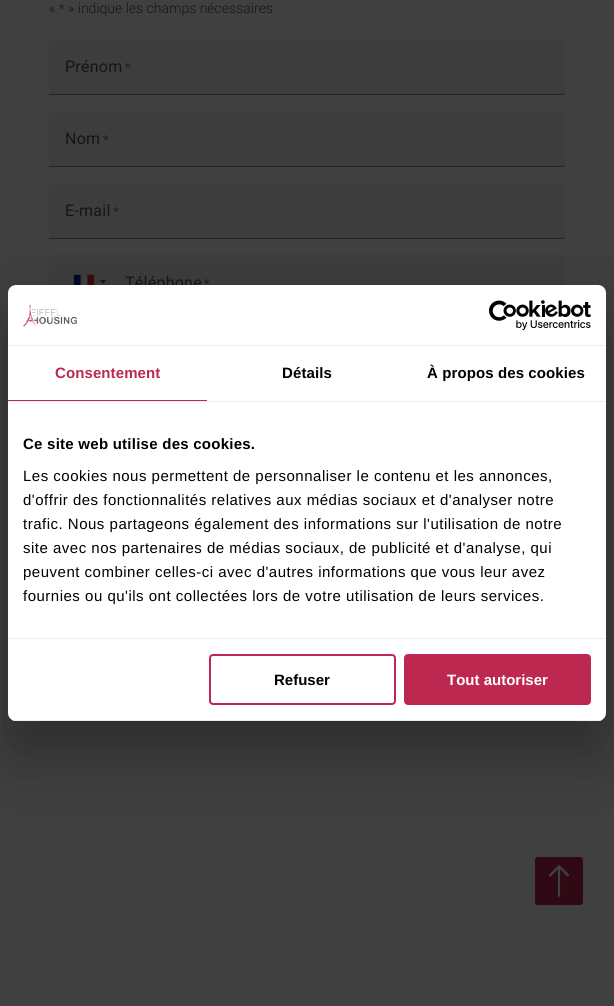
#include <cairo.h>
#include <math.h>
#include <stddef.h>

static cairo_t *c;
static void C(unsigned color){cairo_set_source_rgb(c, (color >> 16) / 255.0, (color >> 8 & 255) / 255.0, (color & 255) / 255.0);}
static void F(const char *family, double size, int italic, int bold){cairo_select_font_face(c, family, italic ? CAIRO_FONT_SLANT_ITALIC : CAIRO_FONT_SLANT_NORMAL,bold ? CAIRO_FONT_WEIGHT_BOLD : CAIRO_FONT_WEIGHT_NORMAL);cairo_set_font_size(c, size);}
static void T(double x, double y, const char *s){cairo_move_to(c, x, y);cairo_show_text(c, s);}
static void L(double x, double y, const char *s, double letter, double word){cairo_move_to(c, x, y);while (*s) {char ch[5] = {0};int n = 0;do ch[n++] = *s++; while ((*s & 0xC0) == 0x80);cairo_show_text(c, ch);cairo_rel_move_to(c, letter + word * (*ch == ' '), 0);}}
static void R(double x, double y, double w, double h){cairo_rectangle(c, x, y, w, h);cairo_fill(c);}
static void Q(double x, double y, double w, double h, double r){cairo_new_sub_path(c);cairo_arc(c, x + w - r, y + h - r, r, 0, M_PI / 2);cairo_arc(c, x + r, y + h - r, r, M_PI / 2, M_PI);cairo_arc(c, x + r, y + r, r, M_PI, 1.5 * M_PI);cairo_arc(c, x + w - r, y + r, r, 1.5 * M_PI, 2 * M_PI);cairo_close_path(c);}
static void S(double x, double y, double w, double h, double r, double blur, double alpha){cairo_push_group_with_content(c, CAIRO_CONTENT_ALPHA);cairo_set_operator(c, CAIRO_OPERATOR_SOURCE);for (int i = 15; i >= -15 && fmin(w, h) + blur * i / 3 > 0; i -= 2) {double e = blur * i / 6;cairo_set_source_rgba(c, 0, 0, 0, alpha * erfc((i - 1) / 8.5) / 2);Q(x - e, y - e, w + 2 * e, h + 2 * e, fmax(0, fmin(r + e + blur * .6, fmin(w, h) / 2 + e)));cairo_fill(c);}cairo_pattern_t *soft = cairo_pop_group(c);cairo_mask(c, soft);cairo_pattern_destroy(soft);}
static void I(const char *path, double x, double y, double w, double h){cairo_surface_t *image = cairo_image_surface_create_from_png(path);cairo_save(c);cairo_set_source_surface(c, image, x, y);cairo_rectangle(c, x, y, w, h);cairo_fill(c);cairo_restore(c);cairo_surface_destroy(image);}
int main(void) {
cairo_surface_t *surface = cairo_image_surface_create(CAIRO_FORMAT_RGB24, 614, 1006);
c = cairo_create(surface);
cairo_font_options_t *options = cairo_font_options_create();
cairo_font_options_set_hint_metrics(options, CAIRO_HINT_METRICS_OFF);
cairo_font_options_set_hint_style(options, CAIRO_HINT_STYLE_NONE);
cairo_set_font_options(c, options);
cairo_set_miter_limit(c, 4);
C(0x404040);
cairo_paint(c);
F("Roboto Light",14,0,0);
C(0x151418);
T(49,13,"«");
F("Roboto Light",13,0,0);
C(0x300b03);
T(59,13,"*");
F("Roboto Light",14,0,0);
C(0x151418);
T(68,13,"» indique les champs nécessaires");
C(0x3d3d3d);
cairo_new_path(c);
cairo_move_to(c,53,39);
cairo_line_to(c,561,39);
cairo_curve_to(c,563,39,565,41,565,43);
cairo_line_to(c,565,95);
cairo_line_to(c,49,95);
cairo_line_to(c,49,43);
cairo_curve_to(c,49,41,51,39,53,39);
cairo_close_path(c);
cairo_fill(c);
F("Roboto",16,0,0);
C(0x151418);
L(65,72,"Prénom",.25,0);
F("Roboto Light",13,0,0);
C(0x300b03);
L(125,72,"*",.25,0);
C(0x242424);
R(49,94,516,1);
C(0x3d3d3d);
cairo_new_path(c);
cairo_move_to(c,53,111);
cairo_line_to(c,561,111);
cairo_curve_to(c,563,111,565,113,565,115);
cairo_line_to(c,565,167);
cairo_line_to(c,49,167);
cairo_line_to(c,49,115);
cairo_curve_to(c,49,113,51,111,53,111);
cairo_close_path(c);
cairo_fill(c);
F("Roboto",16,0,0);
C(0x151418);
L(65,144,"Nom",.25,0);
F("Roboto Light",13,0,0);
C(0x300b03);
L(103,144,"*",.25,0);
C(0x242424);
R(49,166,516,1);
C(0x3d3d3d);
cairo_new_path(c);
cairo_move_to(c,53,183);
cairo_line_to(c,561,183);
cairo_curve_to(c,563,183,565,185,565,187);
cairo_line_to(c,565,239);
cairo_line_to(c,49,239);
cairo_line_to(c,49,187);
cairo_curve_to(c,49,185,51,183,53,183);
cairo_close_path(c);
cairo_fill(c);
F("Roboto",16,0,0);
C(0x151418);
L(65,216,"E-mail",.25,0);
F("Roboto Light",13,0,0);
C(0x300b03);
L(113,216,"*",.25,0);
C(0x242424);
R(49,238,516,1);
C(0x3d3d3d);
cairo_new_path(c);
cairo_move_to(c,53,255);
cairo_line_to(c,561,255);
cairo_curve_to(c,563,255,565,257,565,259);
cairo_line_to(c,565,311);
cairo_line_to(c,49,311);
cairo_line_to(c,49,259);
cairo_curve_to(c,49,257,51,255,53,255);
cairo_close_path(c);
cairo_fill(c);
C(0x222222);
S(74,275,20,14,0,.5,1);
I("1.png",74,275,20,10);
C(0x151515);
cairo_new_path(c);
cairo_move_to(c,100,280);
cairo_line_to(c,106,280);
cairo_line_to(c,103,284);
cairo_close_path(c);
cairo_fill(c);
F("Roboto",16,0,0);
C(0x151418);
L(125,288,"Téléphone",.25,0);
F("Roboto Light",13,0,0);
C(0x300b03);
L(204,288,"*",.25,0);
C(0x2f0a14);
Q(534.5,856.5,49,49,3.5);
cairo_fill_preserve(c);
C(0x404040);
cairo_set_line_width(c,1);
cairo_stroke(c);
I("2.png",548,865,22,32);
C(0x000000);
S(8,317,598,436,8,34,.3);
C(0xffffff);
Q(8,285,598,436,8);
cairo_fill(c);
C(0xeeeeee);
R(8,345,598,1);
I("3.png",23,304,54,23);
I("4.png",489,300,102,30);
R(8,401,598,1);
C(0xbd2850);
R(8,400,199,1);
F("Liberation Sans",15,0,1);
L(55,378,"Consentement",.1,0);
C(0x000000);
L(282,378,"Détails",.1,0);
L(427,378,"À propos des cookies",.1,0);
C(0xeeeeee);
R(8,638,598,1);
C(0x000000);
L(23,449,"Ce site web utilise des cookies.",.25,0);
F("Liberation Sans",15,0,0);
L(23,481,"Les cookies nous permettent de personnaliser le contenu et les annonces,",.5,0);
L(23,505,"d'offrir des fonctionnalités relatives aux médias sociaux et d'analyser notre",.5,0);
L(23,529,"trafic. Nous partageons également des informations sur l'utilisation de notre",.5,0);
L(23,553,"site avec nos partenaires de médias sociaux, de publicité et d'analyse, qui",.5,0);
L(23,577,"peuvent combiner celles-ci avec d'autres informations que vous leur avez",.5,0);
L(23,601,"fournies ou qu'ils ont collectées lors de votre utilisation de leurs services.",.5,0);
cairo_save(c);
Q(8,285,598,436,8);
cairo_clip(c);
C(0xeeeeee);
R(8,720,598,1);
cairo_restore(c);
Q(210,655,185,49,3);
C(0xbd2850);
cairo_set_line_width(c,2);
cairo_stroke(c);
F("Liberation Sans",15,0,1);
C(0x000000);
T(274,685,"Refuser");
C(0xbd2850);
Q(405,655,185,49,3);
cairo_fill_preserve(c);
cairo_stroke(c);
C(0xffffff);
T(447,685,"Tout autoriser");
cairo_surface_write_to_png(surface, "o.png");
cairo_font_options_destroy(options);
cairo_destroy(c);
cairo_surface_destroy(surface);
return 0;
}
